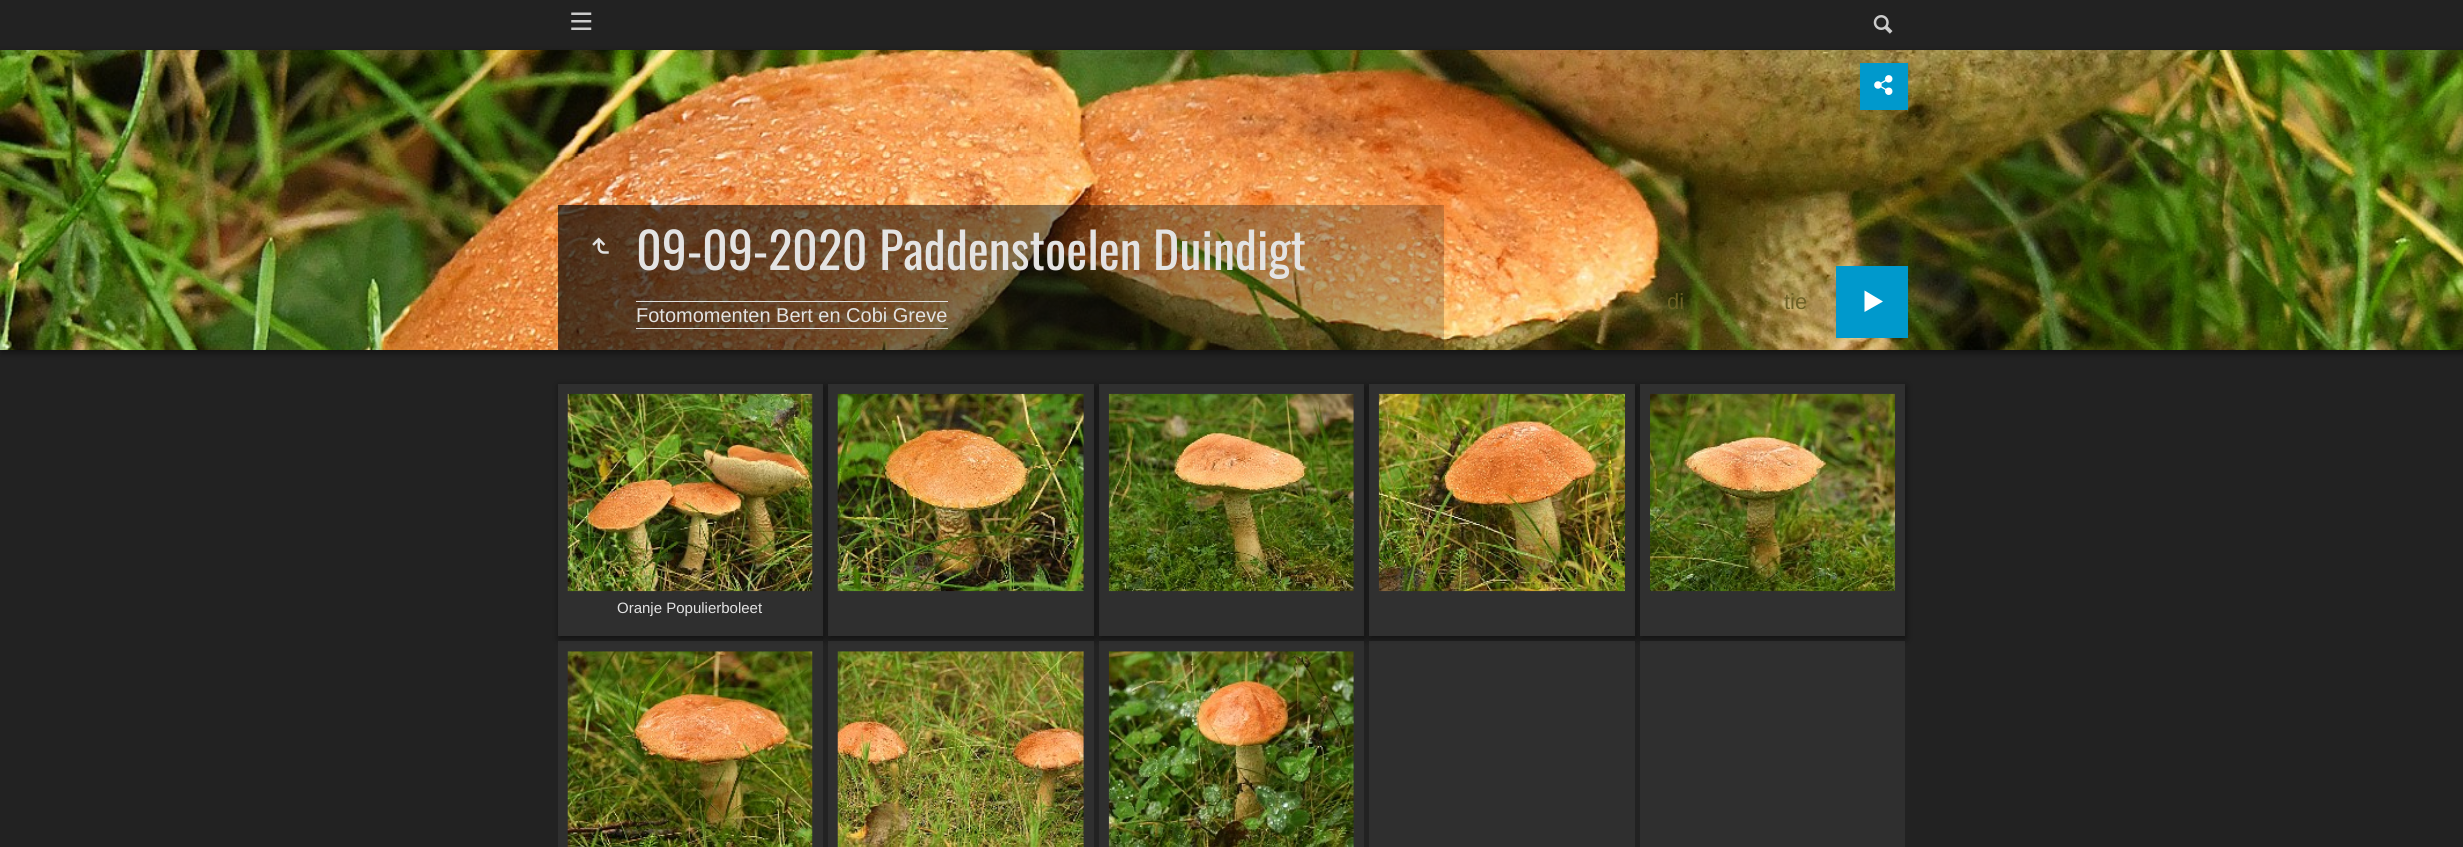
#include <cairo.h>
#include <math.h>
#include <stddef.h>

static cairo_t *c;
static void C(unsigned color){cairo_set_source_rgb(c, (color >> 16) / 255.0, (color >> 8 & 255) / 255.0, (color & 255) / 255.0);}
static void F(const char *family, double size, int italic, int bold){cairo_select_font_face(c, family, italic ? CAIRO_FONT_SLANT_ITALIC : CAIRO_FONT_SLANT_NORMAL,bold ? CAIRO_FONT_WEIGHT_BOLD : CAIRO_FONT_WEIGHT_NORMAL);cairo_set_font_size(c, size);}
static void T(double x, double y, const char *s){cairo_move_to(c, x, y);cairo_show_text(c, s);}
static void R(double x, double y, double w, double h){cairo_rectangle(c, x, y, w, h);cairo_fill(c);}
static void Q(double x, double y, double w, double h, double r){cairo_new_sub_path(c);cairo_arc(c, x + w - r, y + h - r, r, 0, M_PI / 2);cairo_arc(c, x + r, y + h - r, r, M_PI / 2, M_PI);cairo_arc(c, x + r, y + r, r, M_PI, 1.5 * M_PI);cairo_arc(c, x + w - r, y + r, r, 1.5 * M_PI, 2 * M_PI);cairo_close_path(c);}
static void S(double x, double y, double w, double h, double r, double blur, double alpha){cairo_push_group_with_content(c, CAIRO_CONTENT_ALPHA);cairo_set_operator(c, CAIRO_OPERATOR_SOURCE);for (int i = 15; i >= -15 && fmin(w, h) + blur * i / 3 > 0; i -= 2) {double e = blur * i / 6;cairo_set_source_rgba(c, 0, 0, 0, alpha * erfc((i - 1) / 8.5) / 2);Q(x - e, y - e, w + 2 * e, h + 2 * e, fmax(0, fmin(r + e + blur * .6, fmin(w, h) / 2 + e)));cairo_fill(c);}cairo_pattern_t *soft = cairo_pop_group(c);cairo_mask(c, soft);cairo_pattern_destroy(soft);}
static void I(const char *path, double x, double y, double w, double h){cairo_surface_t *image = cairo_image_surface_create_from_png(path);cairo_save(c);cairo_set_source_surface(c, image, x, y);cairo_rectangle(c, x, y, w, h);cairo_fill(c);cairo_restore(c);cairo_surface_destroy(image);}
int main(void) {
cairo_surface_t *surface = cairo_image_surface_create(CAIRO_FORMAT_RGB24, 2463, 847);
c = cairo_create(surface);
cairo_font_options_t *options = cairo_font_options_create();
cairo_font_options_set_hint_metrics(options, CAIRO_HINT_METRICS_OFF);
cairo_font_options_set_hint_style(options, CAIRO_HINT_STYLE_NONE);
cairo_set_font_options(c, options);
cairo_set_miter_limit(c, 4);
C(0x222222);
cairo_paint(c);
I("1.png",571,12,21,18);
I("2.png",1873,15,20,19);
C(0x000000);
S(1,53,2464,300,0,4,.5);
I("3.png",0,50,2463,300);
I("4.png",592,237,17,17);
F("Oswald",50,0,0);
C(0xe3e3e3);
T(636,270,"09-09-2020 Paddenstoelen Duindigt");
C(0xe1e1e1);
R(636,301,312,1);
R(636,328,312,1);
F("Liberation Sans",20,0,0);
C(0xe3e3e3);
T(636,322,"Fotomomenten Bert en Cobi Greve");
C(0x0099cc);
R(1860,63,48,47);
I("5.png",1874,75,19,20);
F("Liberation Sans",22,0,0);
C(0x6c6125);
T(1667,309,"di");
T(1784,309,"tie");
C(0x0099cc);
R(1836,266,72,72);
C(0xffffff);
cairo_new_path(c);
cairo_move_to(c,1864.5,290.5);
cairo_line_to(c,1883,301.5);
cairo_line_to(c,1864.5,312);
cairo_close_path(c);
cairo_fill(c);
cairo_save(c);
cairo_set_fill_rule(c,CAIRO_FILL_RULE_EVEN_ODD);
cairo_new_path(c);
cairo_move_to(c,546,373);
cairo_line_to(c,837,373);
cairo_line_to(c,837,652);
cairo_line_to(c,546,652);
cairo_close_path(c);
cairo_move_to(c,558,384);
cairo_line_to(c,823,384);
cairo_line_to(c,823,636);
cairo_line_to(c,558,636);
cairo_close_path(c);
cairo_clip(c);
C(0x000000);
S(559,386,265,253,0,4,.5);
cairo_restore(c);
cairo_set_source_rgba(c,0.267,0.267,0.267,0.4);
R(558,384,265,252);
I("6.png",567,393,246,199);
F("Liberation Sans",15,0,0);
C(0xe3e3e3);
T(617,613,"Oranje Populierboleet");
cairo_save(c);
cairo_set_fill_rule(c,CAIRO_FILL_RULE_EVEN_ODD);
cairo_new_path(c);
cairo_move_to(c,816,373);
cairo_line_to(c,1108,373);
cairo_line_to(c,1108,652);
cairo_line_to(c,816,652);
cairo_close_path(c);
cairo_move_to(c,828,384);
cairo_line_to(c,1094,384);
cairo_line_to(c,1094,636);
cairo_line_to(c,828,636);
cairo_close_path(c);
cairo_clip(c);
C(0x000000);
S(829,386,266,253,0,4,.5);
cairo_restore(c);
cairo_set_source_rgba(c,0.267,0.267,0.267,0.4);
R(828,384,266,252);
I("7.png",837,393,247,199);
cairo_save(c);
cairo_set_fill_rule(c,CAIRO_FILL_RULE_EVEN_ODD);
cairo_new_path(c);
cairo_move_to(c,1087,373);
cairo_line_to(c,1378,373);
cairo_line_to(c,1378,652);
cairo_line_to(c,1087,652);
cairo_close_path(c);
cairo_move_to(c,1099,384);
cairo_line_to(c,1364,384);
cairo_line_to(c,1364,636);
cairo_line_to(c,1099,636);
cairo_close_path(c);
cairo_clip(c);
C(0x000000);
S(1100,386,265,253,0,4,.5);
cairo_restore(c);
R(1099,384,265,252);
I("8.png",1108,393,246,199);
C(0x000000);
S(1370,386,266,253,0,4,.5);
C(0x303030);
R(1369,384,266,252);
I("9.png",1378,393,247,199);
C(0x000000);
S(1641,386,265,253,0,4,.5);
C(0x303030);
R(1640,384,265,252);
I("10.png",1650,393,245,199);
cairo_set_source_rgba(c,0.267,0.267,0.267,0.4);
R(558,641,265,206);
I("11.png",567,651,246,196);
R(828,641,266,206);
I("12.png",837,651,247,196);
R(1099,641,265,206);
I("13.png",1108,651,246,196);
R(1369,641,266,206);
R(1640,641,265,206);
cairo_surface_write_to_png(surface, "o.png");
cairo_font_options_destroy(options);
cairo_destroy(c);
cairo_surface_destroy(surface);
return 0;
}
